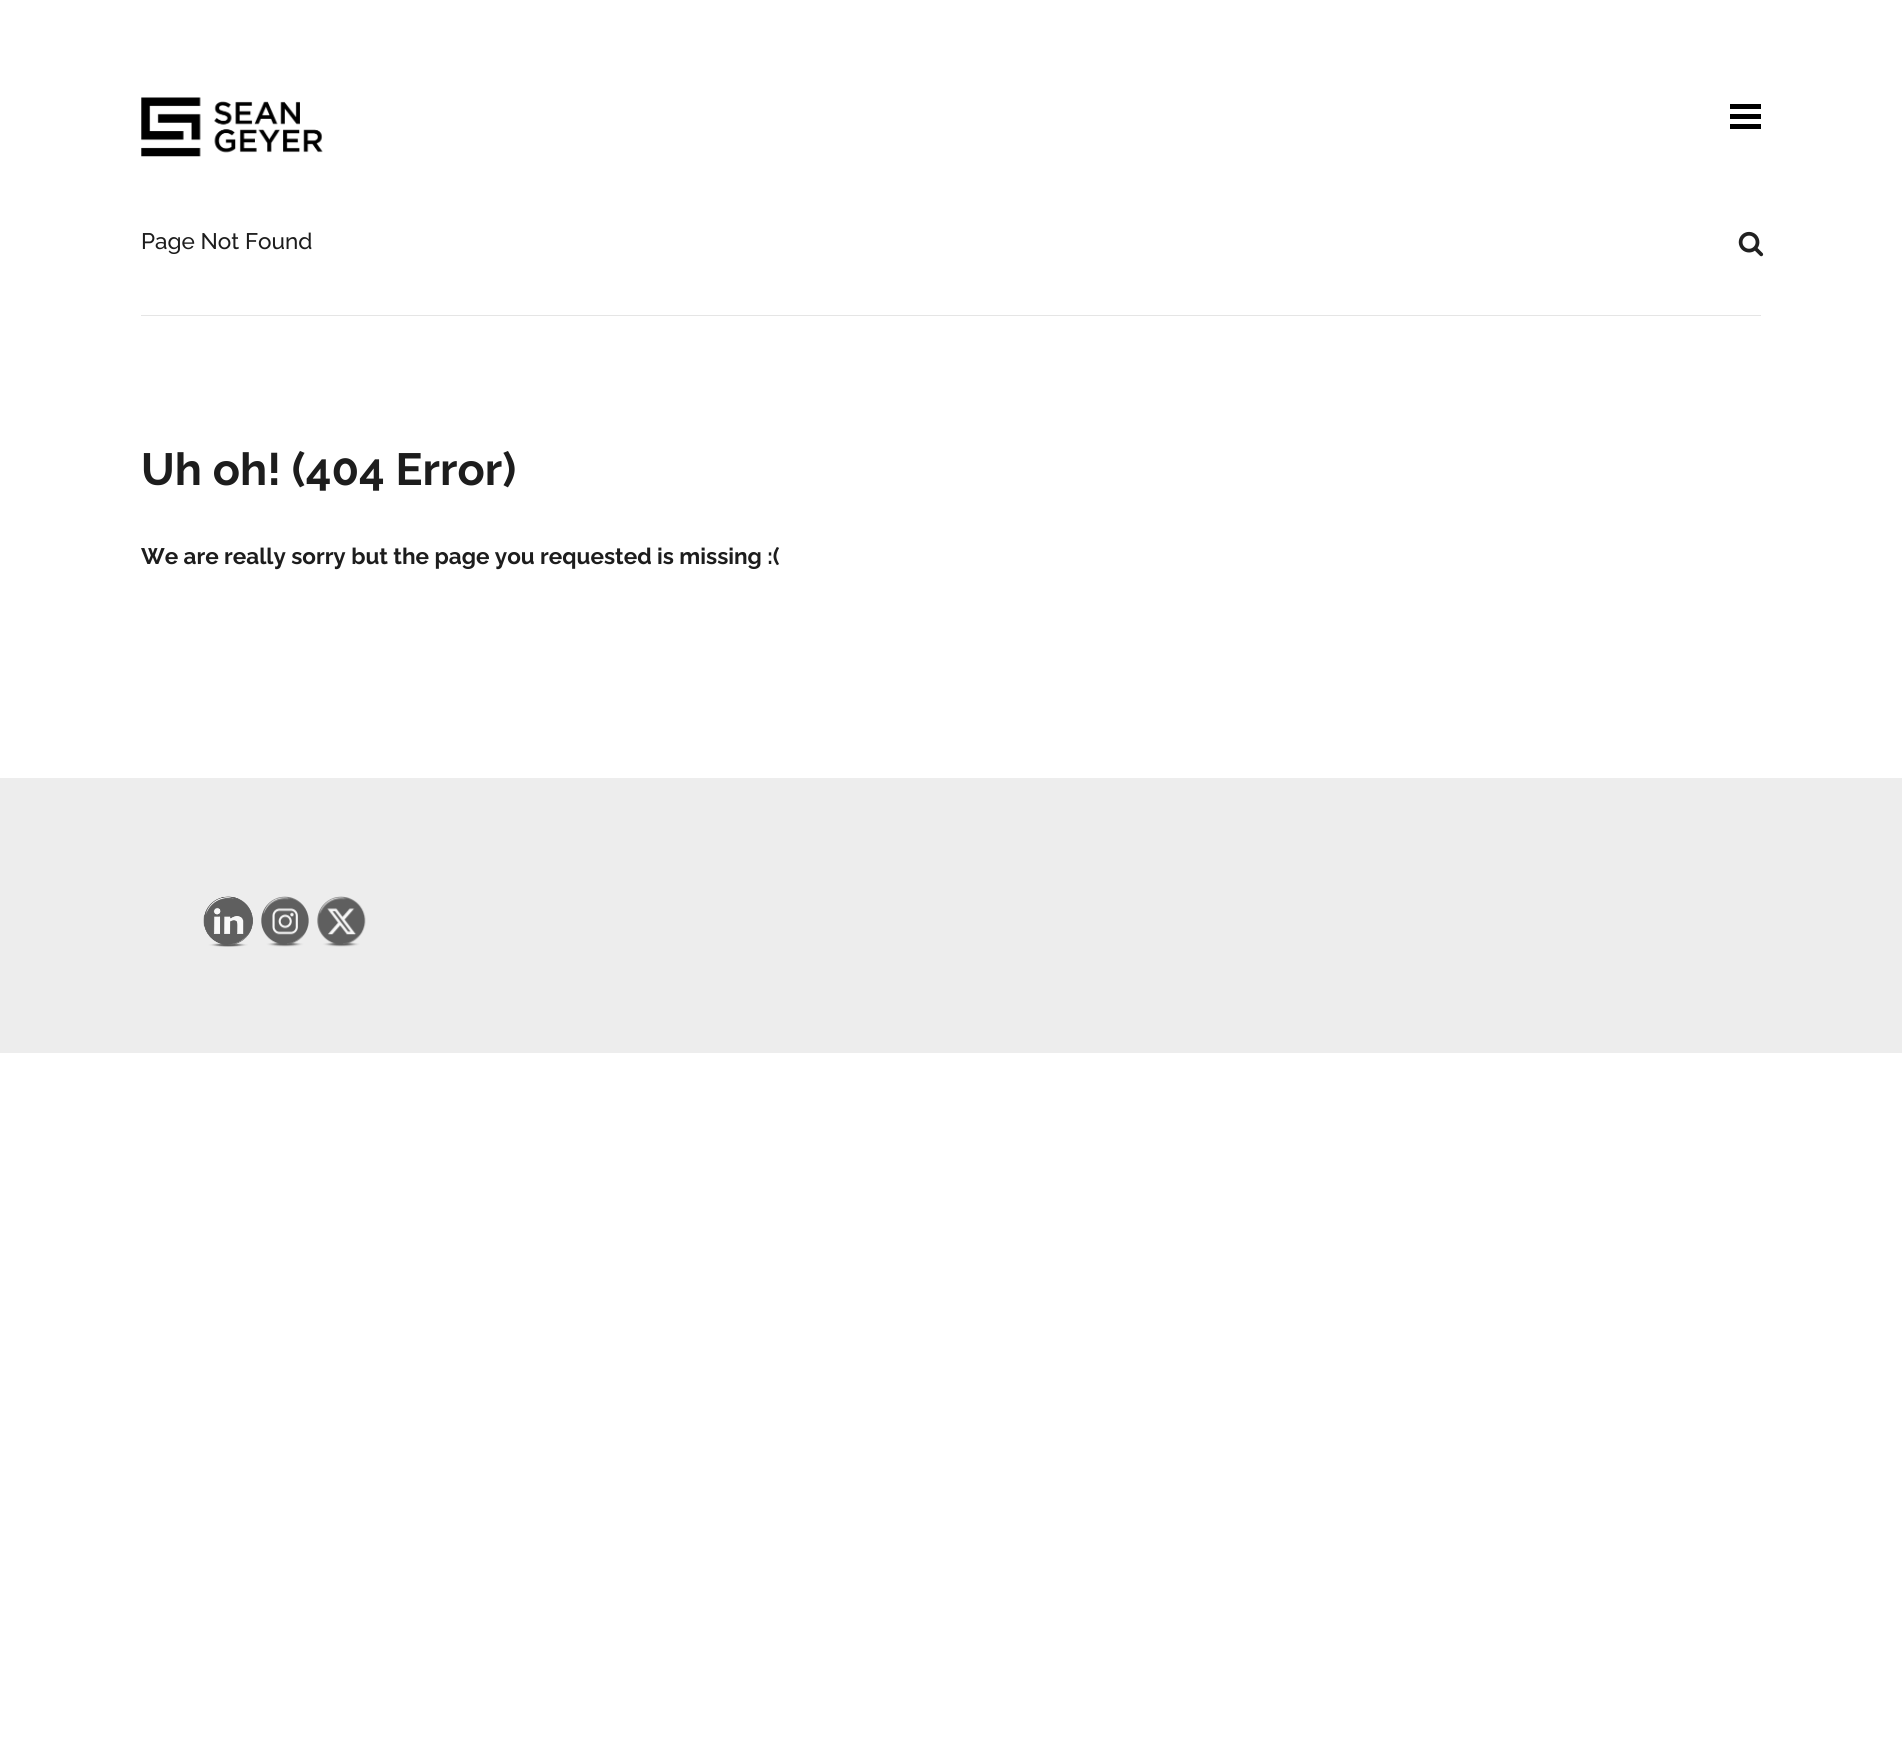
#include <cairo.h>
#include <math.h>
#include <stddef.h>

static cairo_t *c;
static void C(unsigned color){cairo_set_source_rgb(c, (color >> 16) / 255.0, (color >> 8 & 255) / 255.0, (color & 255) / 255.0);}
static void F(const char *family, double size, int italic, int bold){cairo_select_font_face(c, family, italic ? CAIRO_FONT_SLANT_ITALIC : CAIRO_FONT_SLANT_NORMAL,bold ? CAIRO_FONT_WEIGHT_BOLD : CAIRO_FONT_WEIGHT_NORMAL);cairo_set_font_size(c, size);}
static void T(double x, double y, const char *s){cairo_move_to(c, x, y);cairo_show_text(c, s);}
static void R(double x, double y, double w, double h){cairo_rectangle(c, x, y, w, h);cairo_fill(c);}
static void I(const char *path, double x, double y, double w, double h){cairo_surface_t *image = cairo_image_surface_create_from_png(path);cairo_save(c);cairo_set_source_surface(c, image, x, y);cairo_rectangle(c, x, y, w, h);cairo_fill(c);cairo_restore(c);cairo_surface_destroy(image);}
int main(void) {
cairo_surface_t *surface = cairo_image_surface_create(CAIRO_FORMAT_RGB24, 1902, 1753);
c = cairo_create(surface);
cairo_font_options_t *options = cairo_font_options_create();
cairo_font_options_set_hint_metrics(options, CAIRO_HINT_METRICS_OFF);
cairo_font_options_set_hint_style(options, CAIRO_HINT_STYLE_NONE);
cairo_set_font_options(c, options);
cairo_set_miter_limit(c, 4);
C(0xffffff);
cairo_paint(c);
I("1.png",141,97,182,60);
C(0x000000);
R(1730,104,31,5);
R(1730,114,31,5);
R(1730,124,31,5);
C(0xe5e5e5);
R(141,315,1620,1);
F("Raleway Medium",22.5,0,0);
C(0x1d1d1d);
T(141,249,"Page Not Found");
I("2.png",1738,231,26,26);
F("Raleway",45,0,1);
T(141,485,"Uh oh! (404 Error)");
F("Raleway",22.5,0,1);
T(141,564,"We are really sorry but the page you requested is missing :(");
C(0xededed);
R(0,778,1902,275);
I("3.png",203,896,50,51);
I("4.png",261,896,48,51);
I("5.png",317,896,49,51);
cairo_surface_write_to_png(surface, "o.png");
cairo_font_options_destroy(options);
cairo_destroy(c);
cairo_surface_destroy(surface);
return 0;
}
